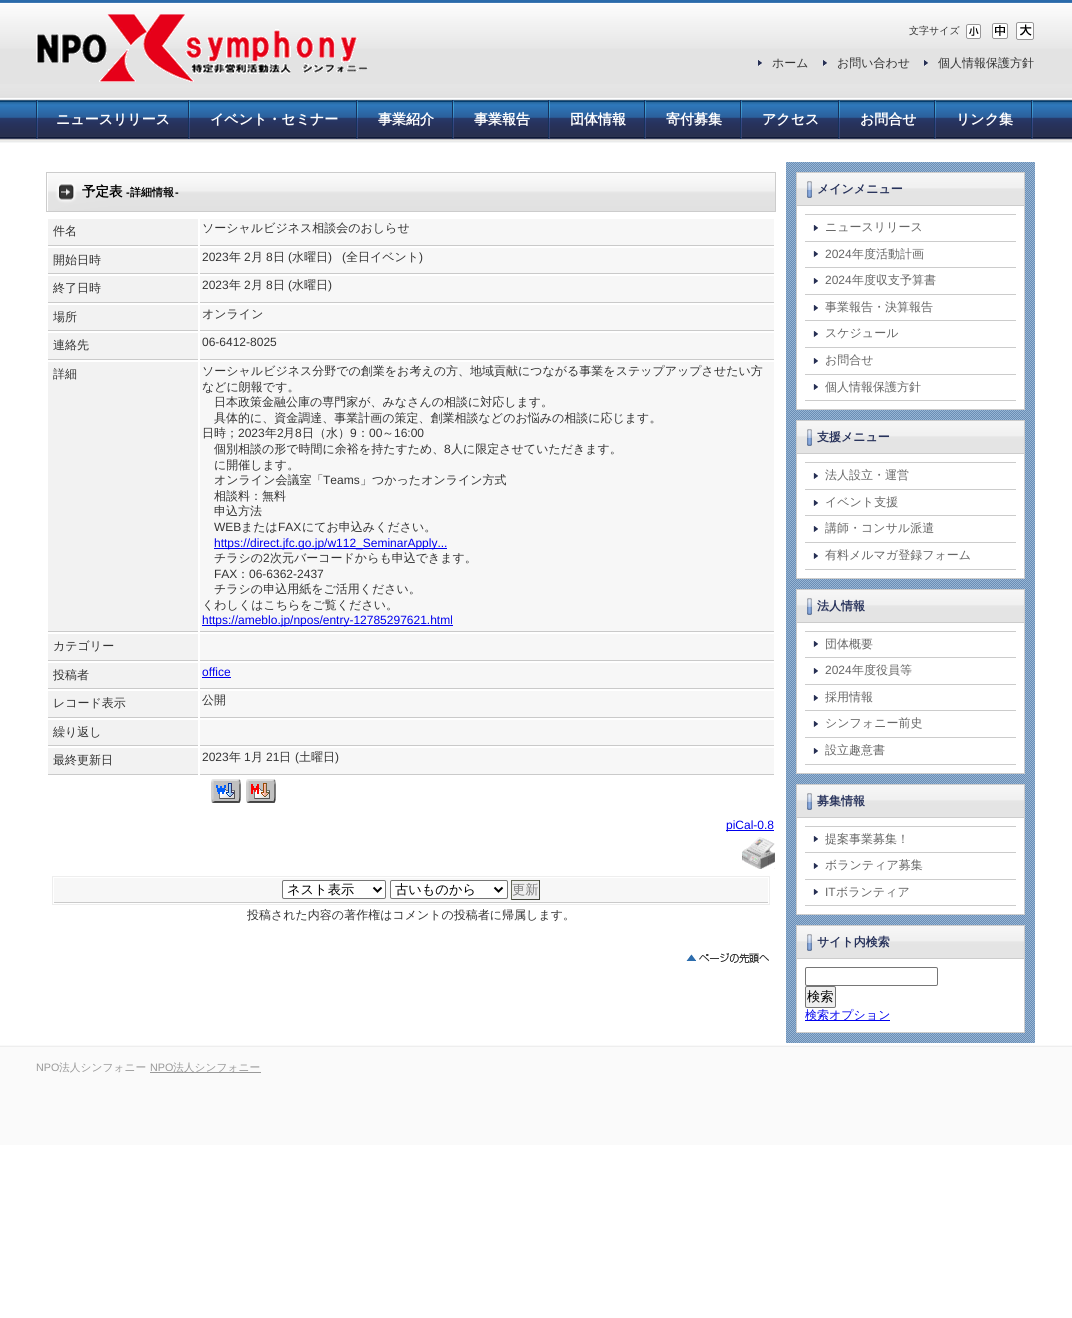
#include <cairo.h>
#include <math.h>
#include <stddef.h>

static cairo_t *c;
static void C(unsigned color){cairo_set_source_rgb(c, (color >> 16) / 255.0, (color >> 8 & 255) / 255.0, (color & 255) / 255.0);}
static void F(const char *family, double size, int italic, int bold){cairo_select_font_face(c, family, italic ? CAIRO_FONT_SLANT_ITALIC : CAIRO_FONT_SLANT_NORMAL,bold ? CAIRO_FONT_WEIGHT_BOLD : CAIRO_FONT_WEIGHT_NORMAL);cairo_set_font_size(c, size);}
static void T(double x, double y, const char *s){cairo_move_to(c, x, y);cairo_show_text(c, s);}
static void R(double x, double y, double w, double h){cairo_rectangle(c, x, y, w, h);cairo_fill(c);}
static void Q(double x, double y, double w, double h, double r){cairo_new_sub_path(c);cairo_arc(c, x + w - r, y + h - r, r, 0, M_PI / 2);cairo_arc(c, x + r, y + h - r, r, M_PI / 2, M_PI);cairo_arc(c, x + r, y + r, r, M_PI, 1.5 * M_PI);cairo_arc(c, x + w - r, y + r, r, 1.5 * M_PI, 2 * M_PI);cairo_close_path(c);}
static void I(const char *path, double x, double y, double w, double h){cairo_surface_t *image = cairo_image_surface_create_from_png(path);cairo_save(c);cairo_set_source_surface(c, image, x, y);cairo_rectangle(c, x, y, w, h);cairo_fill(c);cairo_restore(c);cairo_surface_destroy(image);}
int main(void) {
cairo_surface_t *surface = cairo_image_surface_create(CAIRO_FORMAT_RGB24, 1072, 1318);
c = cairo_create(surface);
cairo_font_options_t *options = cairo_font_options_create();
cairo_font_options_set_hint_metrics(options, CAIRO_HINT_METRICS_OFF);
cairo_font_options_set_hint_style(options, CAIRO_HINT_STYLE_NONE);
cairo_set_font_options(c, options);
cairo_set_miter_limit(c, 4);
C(0xffffff);
cairo_paint(c);
I("1.png",0,0,1072,143);
I("2.png",36,14,332,68);
F("WenQuanYi Zen Hei Medium",10,0,0);
C(0x333333);
T(909,34,"文字サイズ");
I("3.png",966,24,15,15);
I("4.png",992,23,16,16);
I("5.png",1016,22,18,18);
I("6.png",757,60,5,6);
F("WenQuanYi Zen Hei Medium",12,0,0);
T(772,67,"ホーム");
I("6.png",822,60,5,6);
T(837,67,"お問い合わせ");
I("6.png",923,60,5,6);
T(938,67,"個人情報保護方針");
I("7.png",36,100,2,39);
I("7.png",188,100,2,39);
F("WenQuanYi Zen Hei",14,0,1);
C(0xffffff);
T(56,124,"ニュースリリース");
I("7.png",356,100,2,39);
T(210,124,"イベント・セミナー");
I("7.png",452,100,2,39);
T(378,124,"事業紹介");
I("7.png",548,100,2,39);
T(474,124,"事業報告");
I("7.png",644,100,2,39);
T(570,124,"団体情報");
I("7.png",740,100,2,39);
T(666,124,"寄付募集");
I("7.png",838,100,2,39);
T(762,124,"アクセス");
I("7.png",934,100,2,39);
T(860,124,"お問合せ");
I("7.png",1031,100,2,39);
T(956,124,"リンク集");
I("8.png",48,173,727,38);
cairo_rectangle(c,46.5,172.5,729,39);
C(0xcccccc);
cairo_set_line_width(c,1);
cairo_stroke(c);
F("WenQuanYi Zen Hei",13.5,0,1);
C(0x000000);
T(82,196,"予定表");
F("Liberation Sans",11,0,1);
T(126,196,"-");
F("WenQuanYi Zen Hei",11,0,1);
T(130,196,"詳細情報");
F("Liberation Sans",11,0,1);
T(175,196,"-");
C(0xf2f2f2);
R(48,219,150,26);
C(0xcacaca);
R(48,245,150,1);
F("WenQuanYi Zen Hei Medium",12,0,0);
C(0x333333);
T(53,235,"件名");
C(0xf7f7f7);
R(200,219,574,26);
C(0xcacaca);
R(200,245,574,1);
C(0x333333);
T(202,232,"ソーシャルビジネス相談会のおしらせ");
C(0xf2f2f2);
R(48,248,150,25);
C(0xcacaca);
R(48,273,150,1);
C(0x333333);
T(53,264,"開始日時");
C(0xf7f7f7);
R(200,248,574,25);
C(0xcacaca);
R(200,273,574,1);
F("Liberation Sans",12,0,0);
C(0x333333);
T(202,261,"2023");
F("WenQuanYi Zen Hei Medium",12,0,0);
T(229,261,"年");
F("Liberation Sans",12,0,0);
T(244,261,"2");
F("WenQuanYi Zen Hei Medium",12,0,0);
T(251,261,"月");
F("Liberation Sans",12,0,0);
T(266,261,"8");
F("WenQuanYi Zen Hei Medium",12,0,0);
T(273,261,"日");
F("Liberation Sans",12,0,0);
T(288,261,"(");
F("WenQuanYi Zen Hei Medium",12,0,0);
T(292,261,"水曜日");
F("Liberation Sans",12,0,0);
T(328,261,")   (");
F("WenQuanYi Zen Hei Medium",12,0,0);
T(346,261,"全日イベント");
F("Liberation Sans",12,0,0);
T(419,261,")");
C(0xf2f2f2);
R(48,276,150,26);
C(0xcacaca);
R(48,302,150,1);
F("WenQuanYi Zen Hei Medium",12,0,0);
C(0x333333);
T(53,292,"終了日時");
C(0xf7f7f7);
R(200,276,574,26);
C(0xcacaca);
R(200,302,574,1);
F("Liberation Sans",12,0,0);
C(0x333333);
T(202,289,"2023");
F("WenQuanYi Zen Hei Medium",12,0,0);
T(229,289,"年");
F("Liberation Sans",12,0,0);
T(244,289,"2");
F("WenQuanYi Zen Hei Medium",12,0,0);
T(251,289,"月");
F("Liberation Sans",12,0,0);
T(266,289,"8");
F("WenQuanYi Zen Hei Medium",12,0,0);
T(273,289,"日");
F("Liberation Sans",12,0,0);
T(288,289,"(");
F("WenQuanYi Zen Hei Medium",12,0,0);
T(292,289,"水曜日");
F("Liberation Sans",12,0,0);
T(328,289,")");
C(0xf2f2f2);
R(48,305,150,25);
C(0xcacaca);
R(48,330,150,1);
F("WenQuanYi Zen Hei Medium",12,0,0);
C(0x333333);
T(53,321,"場所");
C(0xf7f7f7);
R(200,305,574,25);
C(0xcacaca);
R(200,330,574,1);
C(0x333333);
T(202,318,"オンライン");
C(0xf2f2f2);
R(48,333,150,26);
C(0xcacaca);
R(48,359,150,1);
C(0x333333);
T(53,349,"連絡先");
C(0xf7f7f7);
R(200,333,574,26);
C(0xcacaca);
R(200,359,574,1);
F("Liberation Sans",12,0,0);
C(0x333333);
T(202,346,"06-6412-8025");
C(0xf2f2f2);
R(48,362,150,269);
C(0xcacaca);
R(48,631,150,1);
F("WenQuanYi Zen Hei Medium",12,0,0);
C(0x333333);
T(53,378,"詳細");
C(0xf7f7f7);
R(200,362,574,269);
C(0xcacaca);
R(200,631,574,1);
C(0x333333);
T(202,375,"ソーシャルビジネス分野での創業をお考えの方、地域貢献につながる事業をステップアップさせたい方");
T(202,391,"などに朗報です。");
T(214,406,"日本政策金融公庫の専門家が、みなさんの相談に対応します。");
T(214,422,"具体的に、資金調達、事業計画の策定、創業相談などのお悩みの相談に応じます。");
T(202,437,"日時；");
F("Liberation Sans",12,0,0);
T(238,437,"2023");
F("WenQuanYi Zen Hei Medium",12,0,0);
T(265,437,"年");
F("Liberation Sans",12,0,0);
T(277,437,"2");
F("WenQuanYi Zen Hei Medium",12,0,0);
T(283,437,"月");
F("Liberation Sans",12,0,0);
T(295,437,"8");
F("WenQuanYi Zen Hei Medium",12,0,0);
T(302,437,"日（水）");
F("Liberation Sans",12,0,0);
T(350,437,"9");
F("WenQuanYi Zen Hei Medium",12,0,0);
T(357,437,"：");
F("Liberation Sans",12,0,0);
T(369,437,"00");
F("WenQuanYi Zen Hei Medium",12,0,0);
T(382,437,"～");
F("Liberation Sans",12,0,0);
T(394,437,"16:00");
F("WenQuanYi Zen Hei Medium",12,0,0);
T(214,453,"個別相談の形で時間に余裕を持たすため、");
F("Liberation Sans",12,0,0);
T(444,453,"8");
F("WenQuanYi Zen Hei Medium",12,0,0);
T(451,453,"人に限定させていただきます。");
T(214,469,"に開催します。");
T(214,484,"オンライン会議室「");
F("Liberation Sans",12,0,0);
T(323,484,"Teams");
F("WenQuanYi Zen Hei Medium",12,0,0);
T(360,484,"」つかったオンライン方式");
T(214,500,"相談料：無料");
T(214,515,"申込方法");
F("Liberation Sans",12,0,0);
T(214,531,"WEB");
F("WenQuanYi Zen Hei Medium",12,0,0);
T(241,531,"または");
F("Liberation Sans",12,0,0);
T(278,531,"FAX");
F("WenQuanYi Zen Hei Medium",12,0,0);
T(302,531,"にてお申込みください。");
C(0x0000ee);
R(214,548,233,1);
F("Liberation Sans",12,0,0);
T(214,547,"https://direct.jfc.go.jp/w112_SeminarApply...");
F("WenQuanYi Zen Hei Medium",12,0,0);
C(0x333333);
T(214,562,"チラシの");
F("Liberation Sans",12,0,0);
T(263,562,"2");
F("WenQuanYi Zen Hei Medium",12,0,0);
T(270,562,"次元バーコードからも申込できます。");
F("Liberation Sans",12,0,0);
T(214,578,"FAX");
F("WenQuanYi Zen Hei Medium",12,0,0);
T(237,578,"：");
F("Liberation Sans",12,0,0);
T(249,578,"06-6362-2437");
F("WenQuanYi Zen Hei Medium",12,0,0);
T(214,593,"チラシの申込用紙をご活用ください。");
T(202,609,"くわしくはこちらをご覧ください。");
C(0x0000ee);
R(202,625,251,1);
F("Liberation Sans",12,0,0);
T(202,624,"https://ameblo.jp/npos/entry-12785297621.html");
C(0xf2f2f2);
R(48,634,150,26);
C(0xcacaca);
R(48,660,150,1);
F("WenQuanYi Zen Hei Medium",12,0,0);
C(0x333333);
T(53,650,"カテゴリー");
C(0xf7f7f7);
R(200,634,574,26);
C(0xcacaca);
R(200,660,574,1);
C(0xf2f2f2);
R(48,663,150,25);
C(0xcacaca);
R(48,688,150,1);
C(0x333333);
T(53,679,"投稿者");
C(0xf7f7f7);
R(200,663,574,25);
C(0xcacaca);
R(200,688,574,1);
F("Liberation Sans",12,0,0);
C(0x0000ee);
T(202,676,"office");
R(202,677,29,1);
C(0xf2f2f2);
R(48,691,150,26);
C(0xcacaca);
R(48,717,150,1);
F("WenQuanYi Zen Hei Medium",12,0,0);
C(0x333333);
T(53,707,"レコード表示");
C(0xf7f7f7);
R(200,691,574,26);
C(0xcacaca);
R(200,717,574,1);
C(0x333333);
T(202,704,"公開");
C(0xf2f2f2);
R(48,720,150,25);
C(0xcacaca);
R(48,745,150,1);
C(0x333333);
T(53,736,"繰り返し");
C(0xf7f7f7);
R(200,720,574,25);
C(0xcacaca);
R(200,745,574,1);
C(0xf2f2f2);
R(48,748,150,26);
C(0xcacaca);
R(48,774,150,1);
C(0x333333);
T(53,764,"最終更新日");
C(0xf7f7f7);
R(200,748,574,26);
C(0xcacaca);
R(200,774,574,1);
F("Liberation Sans",12,0,0);
C(0x333333);
T(202,761,"2023");
F("WenQuanYi Zen Hei Medium",12,0,0);
T(229,761,"年");
F("Liberation Sans",12,0,0);
T(244,761,"1");
F("WenQuanYi Zen Hei Medium",12,0,0);
T(251,761,"月");
F("Liberation Sans",12,0,0);
T(266,761,"21");
F("WenQuanYi Zen Hei Medium",12,0,0);
T(279,761,"日");
F("Liberation Sans",12,0,0);
T(295,761,"(");
F("WenQuanYi Zen Hei Medium",12,0,0);
T(299,761,"土曜日");
F("Liberation Sans",12,0,0);
T(335,761,")");
I("9.png",211,779,30,24);
I("10.png",246,779,30,24);
C(0x0000ee);
R(726,830,48,1);
T(726,829,"piCal-0.8");
I("11.png",742,837,33,32);
cairo_rectangle(c,52.5,876.5,717,28);
C(0xeeeeee);
cairo_stroke(c);
C(0xf7f7f7);
R(54,878,714,24);
C(0xcacaca);
R(54,902,714,1);
C(0xffffff);
Q(282.5,880.5,103,18,1.5);
cairo_fill_preserve(c);
C(0x767676);
cairo_stroke(c);
cairo_new_path(c);
cairo_move_to(c,373.5,887.5);
cairo_line_to(c,377.5,891.5);
cairo_line_to(c,381.5,887.5);
C(0x000000);
cairo_set_line_width(c,2);
cairo_stroke(c);
F("WenQuanYi Zen Hei Medium",13.25,0,0);
T(287,894,"ネスト表示");
C(0xffffff);
Q(390.5,880.5,117,18,1.5);
cairo_fill_preserve(c);
C(0x767676);
cairo_set_line_width(c,1);
cairo_stroke(c);
cairo_new_path(c);
cairo_move_to(c,494.5,887.5);
cairo_line_to(c,498.5,891.5);
cairo_line_to(c,502.5,887.5);
C(0x000000);
cairo_set_line_width(c,2);
cairo_stroke(c);
T(395,894,"古いものから");
C(0xeeeeee);
R(512,881,27,18);
C(0x616655);
R(511,880,29,1);
C(0x414439);
R(539,880,1,20);
R(511,899,29,1);
C(0x616655);
R(511,880,1,20);
C(0x7f7f7f);
T(512,894,"更新");
F("WenQuanYi Zen Hei Medium",12,0,0);
C(0x333333);
T(247,919,"投稿された内容の著作権はコメントの投稿者に帰属します。");
I("12.png",686,953,83,10);
I("13.png",786,162,249,881);
I("14.png",797,173,227,32);
C(0xcccccc);
R(796,172,229,1);
R(1024,172,1,33);
R(796,172,1,33);
F("WenQuanYi Zen Hei",12,0,1);
C(0x27325b);
T(817,193,"メインメニュー");
C(0xffffff);
cairo_rectangle(c,796.5,205.5,228,204);
cairo_fill_preserve(c);
C(0xcccccc);
cairo_set_line_width(c,1);
cairo_stroke(c);
R(805,214,211,1);
I("15.png",813,225,5,6);
R(805,241,211,1);
F("WenQuanYi Zen Hei Medium",12,0,0);
C(0x666666);
T(825,231,"ニュースリリース");
I("15.png",813,251,5,6);
C(0xcccccc);
R(805,267,211,1);
F("Liberation Sans",12,0,0);
C(0x666666);
T(825,258,"2024");
F("WenQuanYi Zen Hei Medium",12,0,0);
T(852,258,"年度活動計画");
I("15.png",813,278,5,6);
C(0xcccccc);
R(805,294,211,1);
F("Liberation Sans",12,0,0);
C(0x666666);
T(825,284,"2024");
F("WenQuanYi Zen Hei Medium",12,0,0);
T(852,284,"年度収支予算書");
I("15.png",813,305,5,6);
C(0xcccccc);
R(805,320,211,1);
C(0x666666);
T(825,311,"事業報告・決算報告");
I("15.png",813,331,5,6);
C(0xcccccc);
R(805,347,211,1);
C(0x666666);
T(825,337,"スケジュール");
I("15.png",813,358,5,6);
C(0xcccccc);
R(805,374,211,1);
C(0x666666);
T(825,364,"お問合せ");
I("15.png",813,384,5,6);
C(0xcccccc);
R(805,400,211,1);
C(0x666666);
T(825,391,"個人情報保護方針");
I("14.png",797,421,227,32);
C(0xcccccc);
R(796,420,229,1);
R(1024,420,1,33);
R(796,420,1,33);
F("WenQuanYi Zen Hei",12,0,1);
C(0x27325b);
T(817,441,"支援メニュー");
C(0xffffff);
cairo_rectangle(c,796.5,453.5,228,125);
cairo_fill_preserve(c);
C(0xcccccc);
cairo_stroke(c);
R(805,462,211,1);
I("15.png",813,473,5,6);
R(805,489,211,1);
F("WenQuanYi Zen Hei Medium",12,0,0);
C(0x666666);
T(825,479,"法人設立・運営");
I("15.png",813,500,5,6);
C(0xcccccc);
R(805,515,211,1);
C(0x666666);
T(825,506,"イベント支援");
I("15.png",813,526,5,6);
C(0xcccccc);
R(805,542,211,1);
C(0x666666);
T(825,532,"講師・コンサル派遣");
I("15.png",813,553,5,6);
C(0xcccccc);
R(805,569,211,1);
C(0x666666);
T(825,559,"有料メルマガ登録フォーム");
I("14.png",797,590,227,32);
C(0xcccccc);
R(796,589,229,1);
R(1024,589,1,33);
R(796,589,1,33);
F("WenQuanYi Zen Hei",12,0,1);
C(0x27325b);
T(817,610,"法人情報");
C(0xffffff);
cairo_rectangle(c,796.5,622.5,228,151);
cairo_fill_preserve(c);
C(0xcccccc);
cairo_stroke(c);
R(805,631,211,1);
I("15.png",813,641,5,6);
R(805,657,211,1);
F("WenQuanYi Zen Hei Medium",12,0,0);
C(0x666666);
T(825,648,"団体概要");
I("15.png",813,668,5,6);
C(0xcccccc);
R(805,684,211,1);
F("Liberation Sans",12,0,0);
C(0x666666);
T(825,674,"2024");
F("WenQuanYi Zen Hei Medium",12,0,0);
T(852,674,"年度役員等");
I("15.png",813,695,5,6);
C(0xcccccc);
R(805,710,211,1);
C(0x666666);
T(825,701,"採用情報");
I("15.png",813,721,5,6);
C(0xcccccc);
R(805,737,211,1);
C(0x666666);
T(825,727,"シンフォニー前史");
I("15.png",813,748,5,6);
C(0xcccccc);
R(805,764,211,1);
C(0x666666);
T(825,754,"設立趣意書");
I("14.png",797,785,227,32);
C(0xcccccc);
R(796,784,229,1);
R(1024,784,1,33);
R(796,784,1,33);
F("WenQuanYi Zen Hei",12,0,1);
C(0x27325b);
T(817,805,"募集情報");
C(0xffffff);
cairo_rectangle(c,796.5,817.5,228,97);
cairo_fill_preserve(c);
C(0xcccccc);
cairo_stroke(c);
R(805,826,211,1);
I("15.png",813,836,5,6);
R(805,852,211,1);
F("WenQuanYi Zen Hei Medium",12,0,0);
C(0x666666);
T(825,843,"提案事業募集！");
I("15.png",813,863,5,6);
C(0xcccccc);
R(805,879,211,1);
C(0x666666);
T(825,869,"ボランティア募集");
I("15.png",813,889,5,6);
C(0xcccccc);
R(805,905,211,1);
F("Liberation Sans",12,0,0);
C(0x666666);
T(825,896,"IT");
F("WenQuanYi Zen Hei Medium",12,0,0);
T(836,896,"ボランティア");
I("14.png",797,926,227,32);
C(0xcccccc);
R(796,925,229,1);
R(1024,925,1,33);
R(796,925,1,33);
F("WenQuanYi Zen Hei",12,0,1);
C(0x27325b);
T(817,946,"サイト内検索");
C(0xffffff);
cairo_rectangle(c,796.5,958.5,228,74);
cairo_fill_preserve(c);
C(0xcccccc);
cairo_stroke(c);
Q(805.5,967.5,132,18,1.5);
C(0x767676);
cairo_stroke(c);
C(0xefefef);
Q(805.5,986.5,30,21,1.5);
cairo_fill_preserve(c);
C(0x767676);
cairo_stroke(c);
F("WenQuanYi Zen Hei Medium",13.25,0,0);
C(0x000000);
T(807,1001,"検索");
C(0x0000ee);
R(805,1020,85,1);
F("WenQuanYi Zen Hei Medium",12,0,0);
T(805,1019,"検索オプション");
C(0xfafafa);
R(0,1047,1072,98);
I("16.png",0,1043,1072,4);
F("Liberation Sans",10.75,0,0);
C(0x999999);
T(36,1071,"NPO");
F("WenQuanYi Zen Hei Medium",10.75,0,0);
T(59,1071,"法人シンフォニー");
F("Liberation Sans",10.75,0,0);
T(150,1071,"NPO");
R(150,1072,111,1);
F("WenQuanYi Zen Hei Medium",10.75,0,0);
T(173,1071,"法人シンフォニー");
cairo_surface_write_to_png(surface, "o.png");
cairo_font_options_destroy(options);
cairo_destroy(c);
cairo_surface_destroy(surface);
return 0;
}
